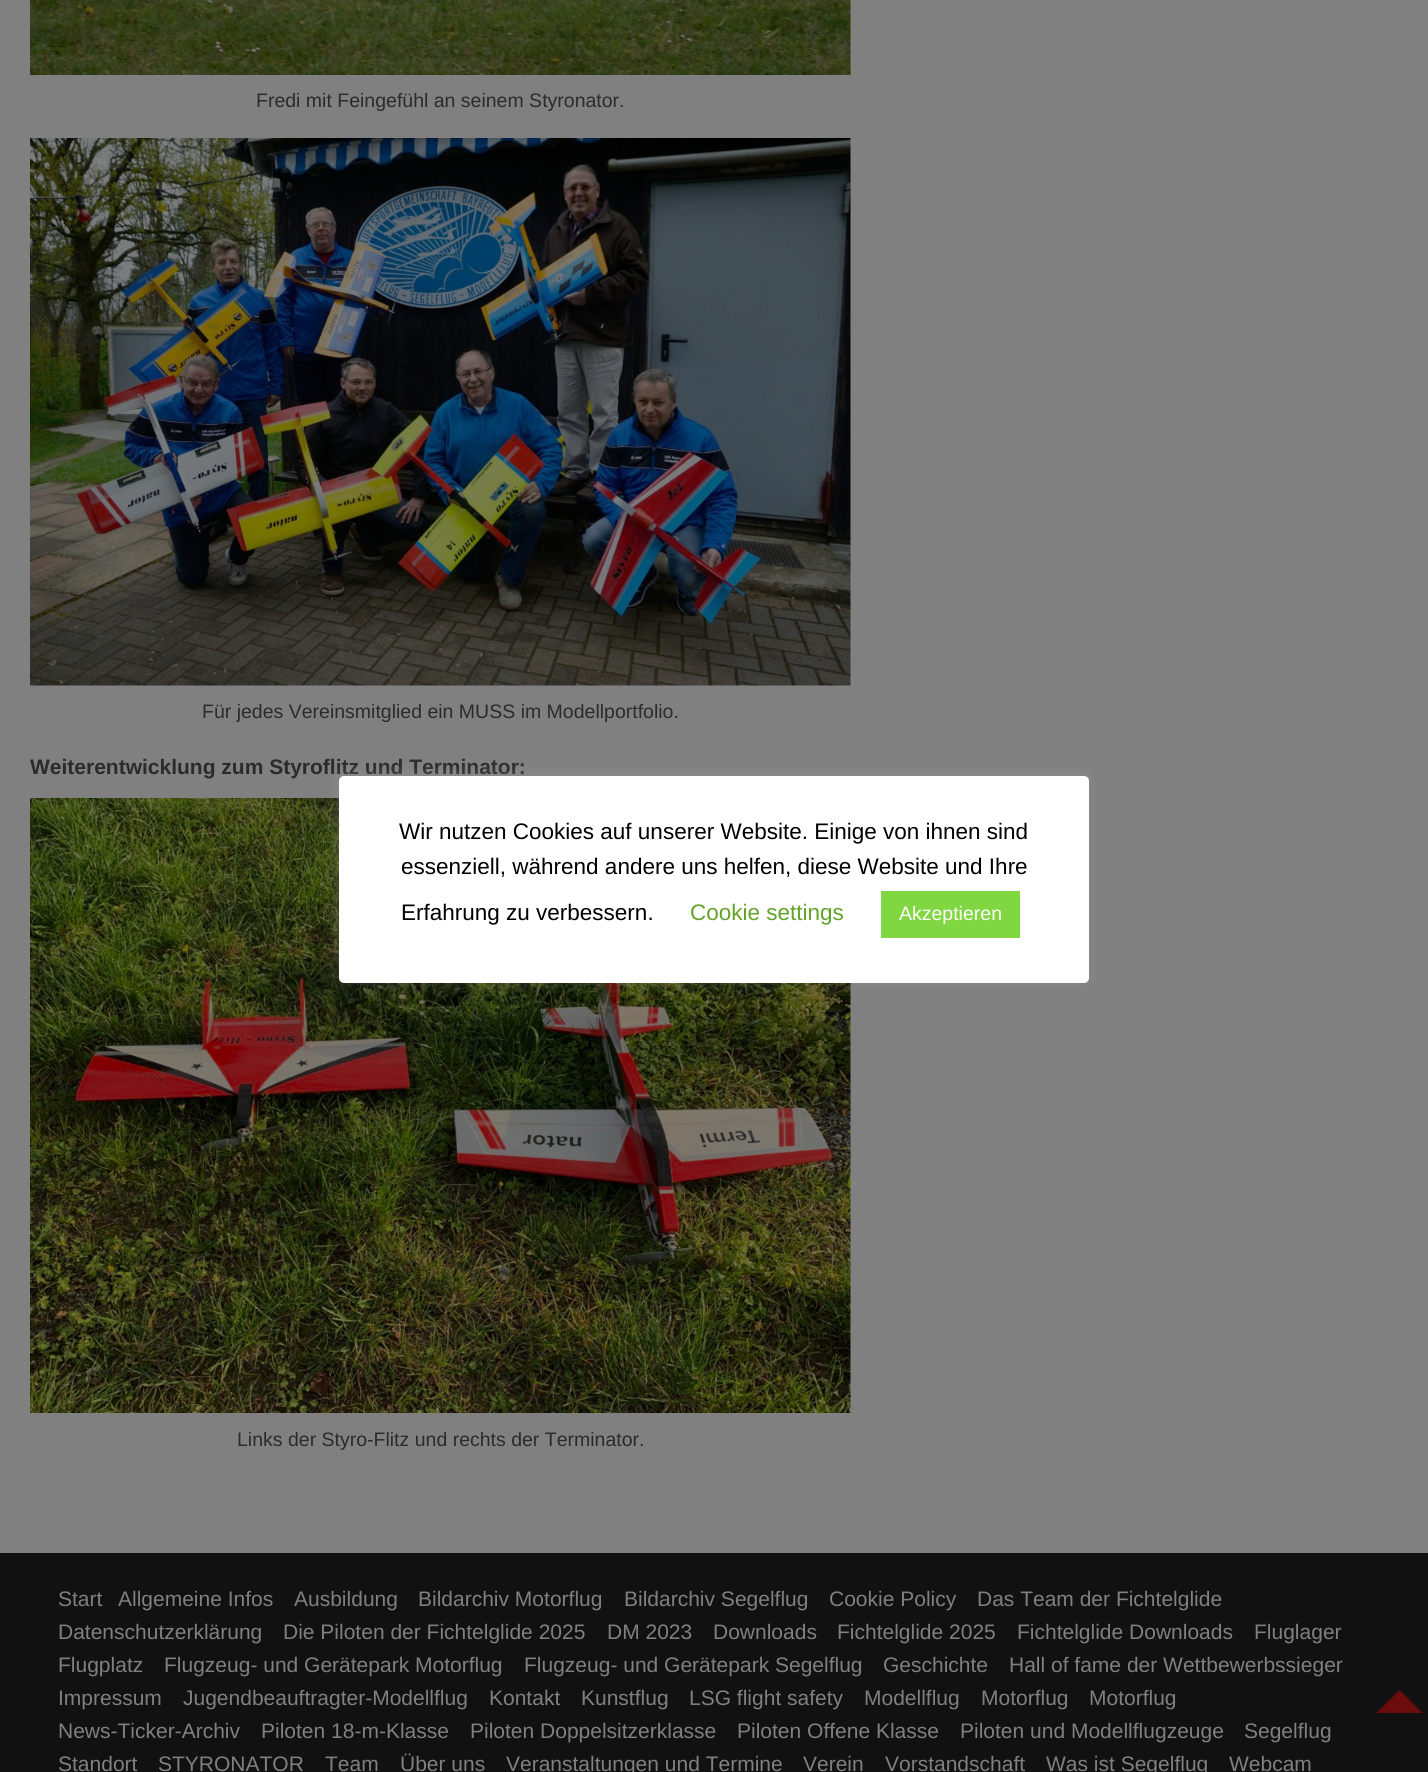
#include <cairo.h>
#include <math.h>
#include <stddef.h>

static cairo_t *c;
static void C(unsigned color){cairo_set_source_rgb(c, (color >> 16) / 255.0, (color >> 8 & 255) / 255.0, (color & 255) / 255.0);}
static void F(const char *family, double size, int italic, int bold){cairo_select_font_face(c, family, italic ? CAIRO_FONT_SLANT_ITALIC : CAIRO_FONT_SLANT_NORMAL,bold ? CAIRO_FONT_WEIGHT_BOLD : CAIRO_FONT_WEIGHT_NORMAL);cairo_set_font_size(c, size);}
static void T(double x, double y, const char *s){cairo_move_to(c, x, y);cairo_show_text(c, s);}
static void R(double x, double y, double w, double h){cairo_rectangle(c, x, y, w, h);cairo_fill(c);}
static void Q(double x, double y, double w, double h, double r){cairo_new_sub_path(c);cairo_arc(c, x + w - r, y + h - r, r, 0, M_PI / 2);cairo_arc(c, x + r, y + h - r, r, M_PI / 2, M_PI);cairo_arc(c, x + r, y + r, r, M_PI, 1.5 * M_PI);cairo_arc(c, x + w - r, y + r, r, 1.5 * M_PI, 2 * M_PI);cairo_close_path(c);}
static void S(double x, double y, double w, double h, double r, double blur, double alpha){cairo_push_group_with_content(c, CAIRO_CONTENT_ALPHA);cairo_set_operator(c, CAIRO_OPERATOR_SOURCE);for (int i = 15; i >= -15 && fmin(w, h) + blur * i / 3 > 0; i -= 2) {double e = blur * i / 6;cairo_set_source_rgba(c, 0, 0, 0, alpha * erfc((i - 1) / 8.5) / 2);Q(x - e, y - e, w + 2 * e, h + 2 * e, fmax(0, fmin(r + e + blur * .6, fmin(w, h) / 2 + e)));cairo_fill(c);}cairo_pattern_t *soft = cairo_pop_group(c);cairo_mask(c, soft);cairo_pattern_destroy(soft);}
static void I(const char *path, double x, double y, double w, double h){cairo_surface_t *image = cairo_image_surface_create_from_png(path);cairo_save(c);cairo_set_source_surface(c, image, x, y);cairo_rectangle(c, x, y, w, h);cairo_fill(c);cairo_restore(c);cairo_surface_destroy(image);}
int main(void) {
cairo_surface_t *surface = cairo_image_surface_create(CAIRO_FORMAT_RGB24, 1428, 1772);
c = cairo_create(surface);
cairo_font_options_t *options = cairo_font_options_create();
cairo_font_options_set_hint_metrics(options, CAIRO_HINT_METRICS_OFF);
cairo_font_options_set_hint_style(options, CAIRO_HINT_STYLE_NONE);
cairo_set_font_options(c, options);
cairo_set_miter_limit(c, 4);
C(0x808080);
cairo_paint(c);
I("1.png",30,0,821,75);
F("Liberation Sans",19.5,0,0);
C(0x2b2b2b);
T(256,107,"Fredi mit Feingefühl an seinem Styronator.");
I("2.png",30,138,821,548);
T(202,718,"Für jedes Vereinsmitglied ein MUSS im Modellportfolio.");
F("Liberation Sans",21,0,1);
T(30,774,"Weiterentwicklung zum Styroflitz und Terminator:");
I("3.png",30,798,821,615);
F("Liberation Sans",19.5,0,0);
T(237,1446,"Links der Styro-Flitz und rechts der Terminator.");
C(0x111111);
R(0,1553,1428,219);
F("Liberation Sans",21,0,0);
C(0x808080);
T(58,1606,"Start");
T(118,1606,"Allgemeine Infos");
T(294,1606,"Ausbildung");
T(418,1606,"Bildarchiv Motorflug");
T(624,1606,"Bildarchiv Segelflug");
T(829,1606,"Cookie Policy");
T(977,1606,"Das Team der Fichtelglide");
T(58,1639,"Datenschutzerklärung");
T(283,1639,"Die Piloten der Fichtelglide 2025");
T(607,1639,"DM 2023");
T(713,1639,"Downloads");
T(837,1639,"Fichtelglide 2025");
T(1017,1639,"Fichtelglide Downloads");
T(1254,1639,"Fluglager");
T(58,1672,"Flugplatz");
T(164,1672,"Flugzeug- und Gerätepark Motorflug");
T(524,1672,"Flugzeug- und Gerätepark Segelflug");
T(883,1672,"Geschichte");
T(1009,1672,"Hall of fame der Wettbewerbssieger");
T(58,1705,"Impressum");
T(183,1705,"Jugendbeauftragter-Modellflug");
T(489,1705,"Kontakt");
T(581,1705,"Kunstflug");
T(689,1705,"LSG flight safety");
T(864,1705,"Modellflug");
T(981,1705,"Motorflug");
T(1089,1705,"Motorflug");
T(58,1738,"News-Ticker-Archiv");
T(261,1738,"Piloten 18-m-Klasse");
T(470,1738,"Piloten Doppelsitzerklasse");
T(737,1738,"Piloten Offene Klasse");
T(960,1738,"Piloten und Modellflugzeuge");
T(1244,1738,"Segelflug");
T(58,1771,"Standort");
T(158,1771,"STYRONATOR");
T(325,1771,"Team");
T(400,1771,"Über uns");
T(506,1771,"Veranstaltungen und Termine");
T(803,1771,"Verein");
T(885,1771,"Vorstandschaft");
T(1046,1771,"Was ist Segelflug");
T(1229,1771,"Webcam");
C(0xacabab);
S(339,774,750,207,5,7.5,.3);
C(0xffffff);
Q(339,776,750,207,5);
cairo_fill(c);
F("Liberation Sans",22.5,0,0);
C(0x000000);
T(399,839,"Wir nutzen Cookies auf unserer Website. Einige von ihnen sind");
T(401,874,"essenziell, während andere uns helfen, diese Website und Ihre");
T(401,920,"Erfahrung zu verbessern.");
C(0x62a329);
T(690,920,"Cookie settings");
C(0x81d742);
R(881,891,139,47);
F("Liberation Sans",19.5,0,0);
C(0xffffff);
T(899,920,"Akzeptieren");
I("4.png",1375,1690,49,23);
cairo_surface_write_to_png(surface, "o.png");
cairo_font_options_destroy(options);
cairo_destroy(c);
cairo_surface_destroy(surface);
return 0;
}
